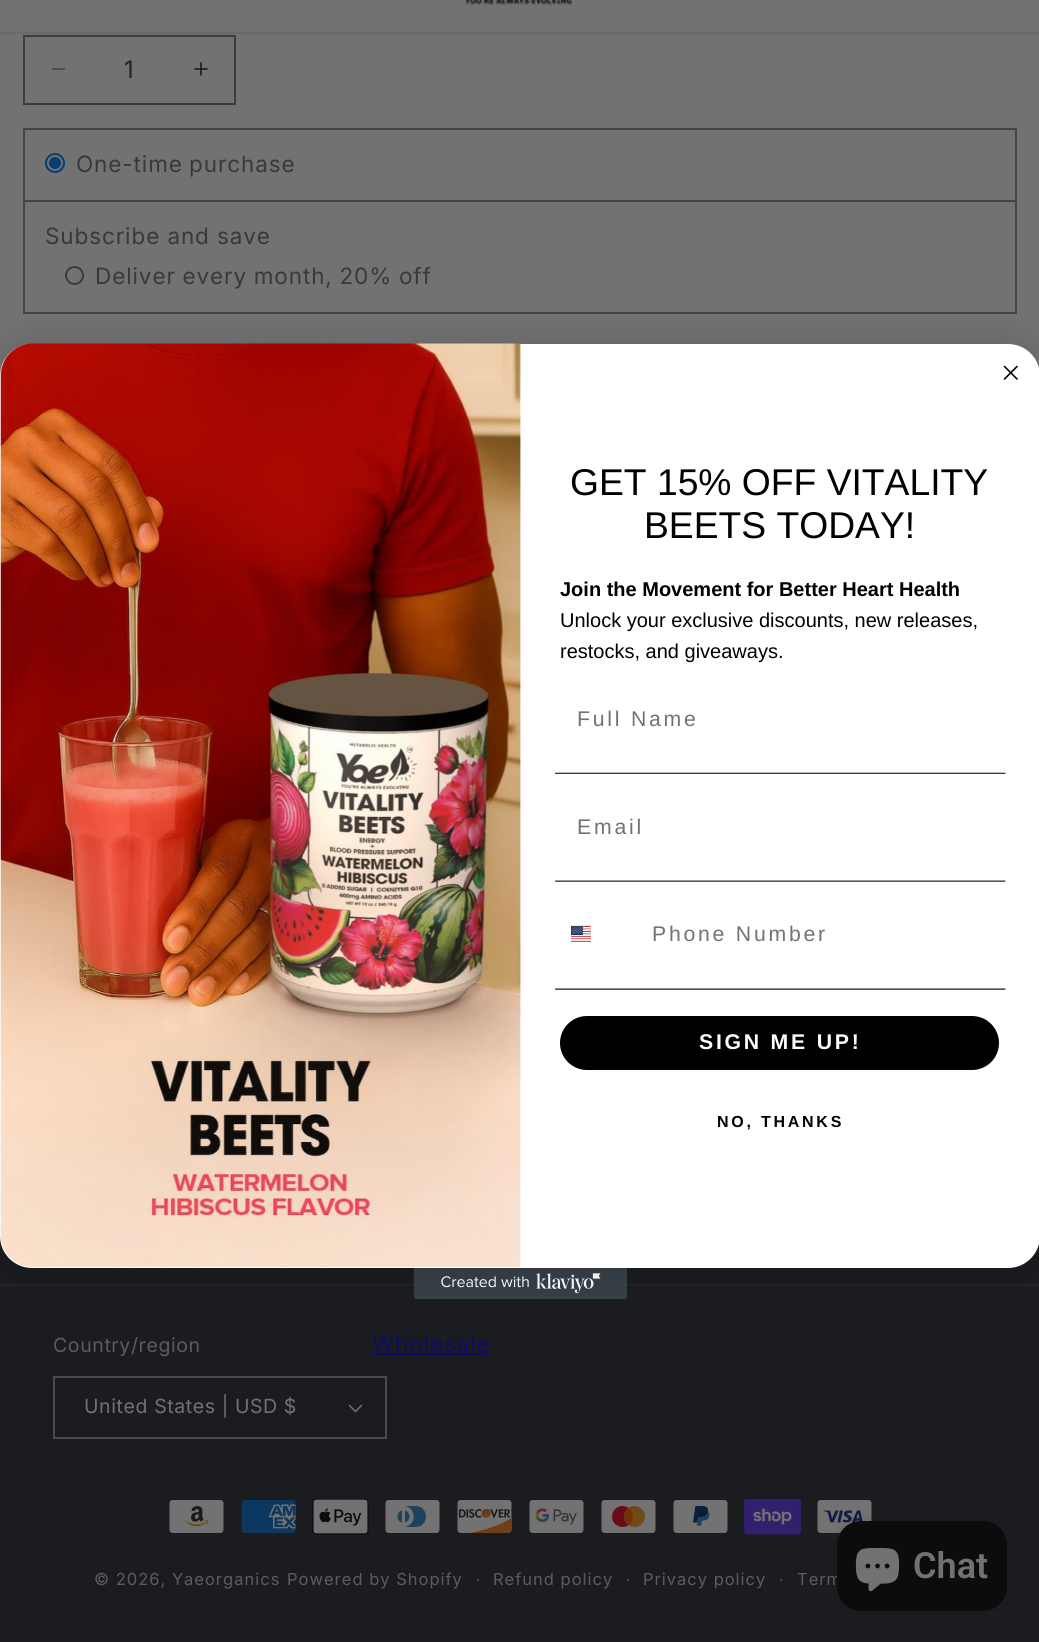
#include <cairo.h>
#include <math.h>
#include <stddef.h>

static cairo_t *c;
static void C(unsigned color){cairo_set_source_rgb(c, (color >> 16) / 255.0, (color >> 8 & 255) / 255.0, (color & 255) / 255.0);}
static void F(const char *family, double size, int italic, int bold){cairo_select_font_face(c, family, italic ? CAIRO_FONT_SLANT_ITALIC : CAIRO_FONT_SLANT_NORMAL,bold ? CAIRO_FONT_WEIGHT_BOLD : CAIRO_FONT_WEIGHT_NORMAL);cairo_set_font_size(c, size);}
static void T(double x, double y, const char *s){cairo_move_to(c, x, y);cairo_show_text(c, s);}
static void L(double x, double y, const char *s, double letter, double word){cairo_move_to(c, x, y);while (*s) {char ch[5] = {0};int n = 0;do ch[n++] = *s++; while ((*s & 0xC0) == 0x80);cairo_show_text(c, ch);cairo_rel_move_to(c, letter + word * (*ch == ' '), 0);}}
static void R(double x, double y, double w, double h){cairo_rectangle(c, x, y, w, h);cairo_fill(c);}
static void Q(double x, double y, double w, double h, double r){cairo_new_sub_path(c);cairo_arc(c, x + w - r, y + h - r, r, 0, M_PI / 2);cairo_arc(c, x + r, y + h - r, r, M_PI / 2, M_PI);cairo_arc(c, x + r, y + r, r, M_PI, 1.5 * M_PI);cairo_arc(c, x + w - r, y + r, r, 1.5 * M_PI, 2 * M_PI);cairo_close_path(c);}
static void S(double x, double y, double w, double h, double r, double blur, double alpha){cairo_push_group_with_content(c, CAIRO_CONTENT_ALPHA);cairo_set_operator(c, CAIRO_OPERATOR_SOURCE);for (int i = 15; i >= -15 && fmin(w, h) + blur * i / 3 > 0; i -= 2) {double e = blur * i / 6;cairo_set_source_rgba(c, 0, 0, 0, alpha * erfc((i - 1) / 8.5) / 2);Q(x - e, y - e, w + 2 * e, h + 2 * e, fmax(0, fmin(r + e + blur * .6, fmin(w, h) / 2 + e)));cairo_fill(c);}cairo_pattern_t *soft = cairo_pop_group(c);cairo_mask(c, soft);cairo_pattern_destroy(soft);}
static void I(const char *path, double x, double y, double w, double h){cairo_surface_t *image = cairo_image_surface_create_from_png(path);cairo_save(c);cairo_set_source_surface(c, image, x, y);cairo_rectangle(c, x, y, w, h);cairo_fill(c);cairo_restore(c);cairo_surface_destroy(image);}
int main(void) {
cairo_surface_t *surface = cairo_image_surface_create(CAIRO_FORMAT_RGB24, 1039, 1642);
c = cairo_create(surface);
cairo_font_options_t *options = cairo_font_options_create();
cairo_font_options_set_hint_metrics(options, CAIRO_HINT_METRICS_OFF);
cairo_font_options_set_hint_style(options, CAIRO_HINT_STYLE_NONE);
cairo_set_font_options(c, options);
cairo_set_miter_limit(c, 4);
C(0x727272);
cairo_paint(c);
C(0x6a6a6a);
R(0,32,1039,2);
I("1.png",465,0,107,5);
I("2.png",51,68,15,2);
I("3.png",194,62,14,14);
cairo_rectangle(c,24,36,211,68);
C(0x3e3e3e);
cairo_stroke(c);
F("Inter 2",24,0,0);
C(0x222222);
T(124,78,"1");
cairo_rectangle(c,24,129,992,184);
C(0x454444);
cairo_stroke(c);
R(24,200,992,2);
cairo_arc(c,55,163,9,0,2 * M_PI);
C(0x0c3b72);
cairo_stroke(c);
cairo_arc(c,55,163,6,0,2 * M_PI);
cairo_fill(c);
F("Inter",22.5,0,0);
C(0x38393b);
L(76,172,"One-time purchase",.9,-1);
L(45,244,"Subscribe and save",.9,0);
cairo_new_path(c);
cairo_arc(c,74.5,275.5,8.5,0,2 * M_PI);
C(0x3b3b3b);
cairo_stroke(c);
C(0x38393b);
L(95,284,"Deliver every month, 20% off",.9,-.5);
C(0x1a1c20);
R(0,1236,1039,406);
C(0x222327);
R(0,1284,1039,2);
I("9.png",413,1268,214,31);
C(0x000000);
S(0,344,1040,924,32,20,.15);
C(0xffffff);
Q(0,344,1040,924,32);
cairo_fill(c);
cairo_new_path(c);
cairo_move_to(c,1004.5,366.5);
cairo_line_to(c,1017,379);
cairo_move_to(c,1004.5,379);
cairo_line_to(c,1017,366.5);
cairo_close_path(c);
C(0x000000);
cairo_set_line_width(c,1.6);
cairo_set_line_cap(c,CAIRO_LINE_CAP_ROUND);
cairo_set_line_join(c,CAIRO_LINE_JOIN_ROUND);
cairo_stroke(c);
I("4.png",0,343,521,924);
F("Liberation Sans",37.25,0,0);
T(570,495,"GET 15% OFF VITALITY");
T(644,538,"BEETS TODAY!");
F("Liberation Sans",20,0,1);
T(560,596,"Join the Movement for Better Heart Health");
F("Liberation Sans",20,0,0);
T(560,627,"Unlock your exclusive discounts, new releases,");
T(560,658,"restocks, and giveaways.");
F("Liberation Sans",21.25,0,0);
C(0x727272);
L(577,726,"Full Name",2.75,0);
I("5.png",555,772,451,2);
L(577,834,"Email",2.75,0);
I("6.png",555,880,451,2);
I("7.png",571,925,20,17);
L(652,941,"Phone Number",2.75,0);
I("8.png",555,988,451,2);
C(0x000000);
Q(560,1016,439,54,27);
cairo_fill(c);
F("Liberation Sans",21.25,0,1);
C(0xffffff);
L(699,1049,"SIGN ME UP!",2.75,0);
F("Liberation Sans",16,0,1);
C(0x000000);
L(717,1127,"NO, THANKS",2.75,0);
F("Inter",19.5,0,0);
C(0x5c5c5e);
L(53,1352,"Country/region",.6,0);
I("10.png",348,1404,15,9);
cairo_rectangle(c,54,1377,332,61);
C(0x4a4b4d);
cairo_set_line_width(c,2);
cairo_set_line_cap(c,CAIRO_LINE_CAP_BUTT);
cairo_set_line_join(c,CAIRO_LINE_JOIN_MITER);
cairo_stroke(c);
C(0x727272);
L(84,1413,"United States | USD $",.6,0);
F("Inter",22.5,0,0);
C(0x0c0c6b);
L(372,1352,"Wholesale",.9,0);
R(372,1353,119,2);
I("11.png",169,1500,55,33);
I("12.png",241,1500,55,33);
I("13.png",312,1499,57,36);
I("14.png",385,1500,55,33);
I("15.png",457,1500,55,33);
I("16.png",529,1500,55,33);
I("17.png",601,1500,55,33);
I("18.png",673,1500,55,33);
I("19.png",744,1499,57,36);
I("20.png",817,1500,55,33);
F("Inter",16.5,0,0);
C(0x5c5c5e);
L(94,1585,"© 2026, Yaeorganics",1,0);
L(287,1585,"Powered by Shopify",1,0);
F("Inter",15,0,0);
L(476,1585,"·",1,0);
F("Inter",16.5,0,0);
L(493,1585,"Refund policy",1,0);
F("Inter",15,0,0);
L(626,1585,"·",1,0);
F("Inter",16.5,0,0);
L(643,1585,"Privacy policy",1,0);
F("Inter",15,0,0);
L(779,1585,"·",1,0);
F("Inter",16.5,0,0);
L(797,1585,"Term",1,0);
C(0x0c0c0c);
S(837,1521,170,90,24,4,.15);
C(0x0c0c0c);
Q(837,1521,170,90,24);
cairo_fill(c);
I("21.png",855,1548,45,44);
F("Roboto SemiBold",36,0,0);
C(0x727272);
T(913,1578,"Chat");
cairo_surface_write_to_png(surface, "o.png");
cairo_font_options_destroy(options);
cairo_destroy(c);
cairo_surface_destroy(surface);
return 0;
}
